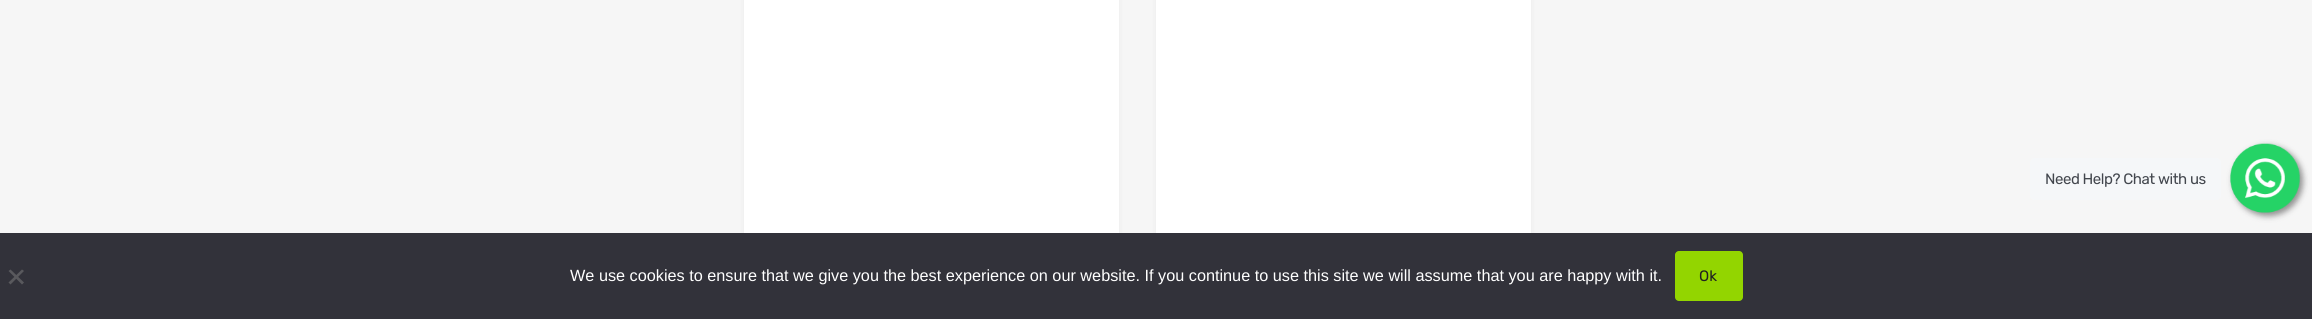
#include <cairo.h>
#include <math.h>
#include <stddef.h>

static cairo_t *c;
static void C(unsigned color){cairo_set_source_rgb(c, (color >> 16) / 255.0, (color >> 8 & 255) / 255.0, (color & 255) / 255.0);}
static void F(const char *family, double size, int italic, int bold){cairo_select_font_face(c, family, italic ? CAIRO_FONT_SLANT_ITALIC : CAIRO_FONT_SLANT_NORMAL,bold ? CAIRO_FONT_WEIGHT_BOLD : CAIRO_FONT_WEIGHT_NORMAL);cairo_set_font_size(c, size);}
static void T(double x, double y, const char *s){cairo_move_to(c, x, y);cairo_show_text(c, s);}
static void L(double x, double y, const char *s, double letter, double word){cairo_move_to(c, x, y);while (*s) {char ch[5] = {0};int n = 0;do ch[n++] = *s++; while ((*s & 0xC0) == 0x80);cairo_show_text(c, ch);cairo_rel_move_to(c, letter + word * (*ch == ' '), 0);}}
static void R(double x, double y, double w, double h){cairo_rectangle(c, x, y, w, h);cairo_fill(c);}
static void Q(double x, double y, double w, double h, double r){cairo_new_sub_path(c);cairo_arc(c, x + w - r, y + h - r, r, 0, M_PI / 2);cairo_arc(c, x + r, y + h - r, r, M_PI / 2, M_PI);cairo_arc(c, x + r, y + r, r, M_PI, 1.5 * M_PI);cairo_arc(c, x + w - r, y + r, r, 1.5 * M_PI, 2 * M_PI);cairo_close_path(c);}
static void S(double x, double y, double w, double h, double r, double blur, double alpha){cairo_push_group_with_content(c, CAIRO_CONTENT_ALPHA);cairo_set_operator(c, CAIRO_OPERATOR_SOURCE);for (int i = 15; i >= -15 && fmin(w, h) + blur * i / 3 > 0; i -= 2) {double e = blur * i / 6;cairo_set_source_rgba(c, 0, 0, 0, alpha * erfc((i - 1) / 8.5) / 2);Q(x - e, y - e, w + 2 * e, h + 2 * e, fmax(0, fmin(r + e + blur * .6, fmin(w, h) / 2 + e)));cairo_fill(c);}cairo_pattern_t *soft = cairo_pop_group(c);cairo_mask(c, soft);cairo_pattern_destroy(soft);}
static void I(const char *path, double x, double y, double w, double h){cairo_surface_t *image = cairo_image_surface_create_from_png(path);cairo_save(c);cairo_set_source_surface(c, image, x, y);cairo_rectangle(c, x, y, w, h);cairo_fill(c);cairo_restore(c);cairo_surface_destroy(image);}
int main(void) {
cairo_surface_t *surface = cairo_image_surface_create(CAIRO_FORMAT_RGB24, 2312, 319);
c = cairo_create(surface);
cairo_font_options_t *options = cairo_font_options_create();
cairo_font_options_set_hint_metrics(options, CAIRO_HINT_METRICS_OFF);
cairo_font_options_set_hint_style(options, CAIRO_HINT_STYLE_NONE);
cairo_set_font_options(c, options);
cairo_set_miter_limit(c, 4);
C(0xf6f6f6);
cairo_paint(c);
C(0x000000);
S(744,-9,375,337,0,3,.05);
C(0xffffff);
R(744,0,375,233);
C(0x000000);
S(1156,-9,375,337,0,3,.05);
C(0xffffff);
R(1156,0,375,233);
C(0xf5f7f9);
Q(2030,158,191,42,5);
cairo_fill(c);
F("Rubik",15,0,0);
C(0x43474e);
L(2045,184,"Need Help? Chat with us",-.45,0);
C(0x2d2d2d);
S(2233,146,70,70,35,3,.5);
I("1.png",2230,143,70,70);
C(0x32323a);
R(0,233,2312,86);
C(0x59595d);
cairo_new_path(c);
cairo_move_to(c,22,269.5);
cairo_line_to(c,24,271);
cairo_line_to(c,10.5,284.5);
cairo_line_to(c,8.5,282.5);
cairo_close_path(c);
cairo_fill(c);
cairo_new_path(c);
cairo_move_to(c,8.5,271);
cairo_line_to(c,10.5,269.5);
cairo_line_to(c,24,282.5);
cairo_line_to(c,22,284.5);
cairo_close_path(c);
cairo_fill(c);
F("Liberation Sans",16.25,0,0);
C(0xffffff);
T(570,281,"We use cookies to ensure that we give you the best experience on our website. If you continue to use this site we will assume that you are happy with it.");
C(0x93d500);
Q(1675,251,68,50,4);
cairo_fill(c);
F("Rubik",15,0,0);
C(0x212121);
T(1699,281,"Ok");
cairo_surface_write_to_png(surface, "o.png");
cairo_font_options_destroy(options);
cairo_destroy(c);
cairo_surface_destroy(surface);
return 0;
}
